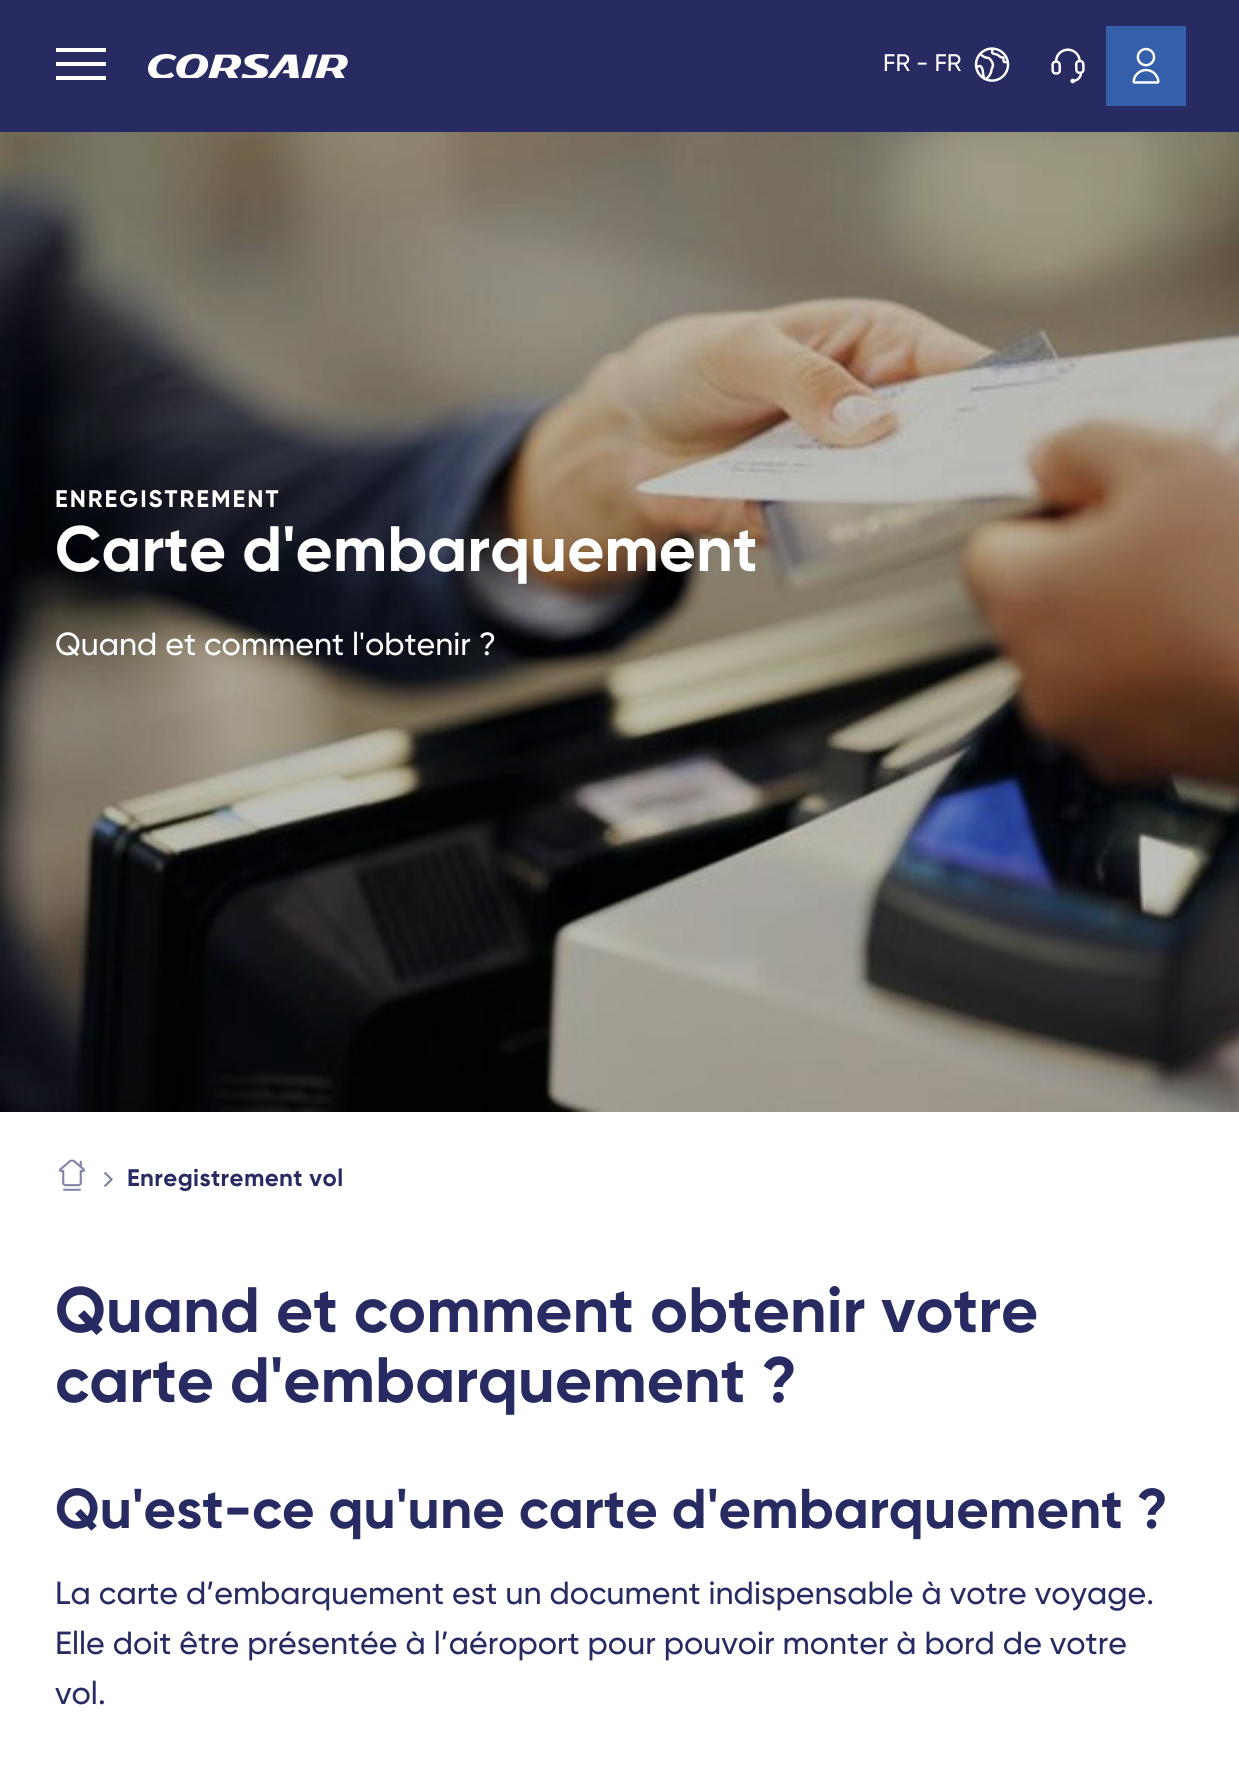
#include <cairo.h>
#include <math.h>
#include <stddef.h>

static cairo_t *c;
static void C(unsigned color){cairo_set_source_rgb(c, (color >> 16) / 255.0, (color >> 8 & 255) / 255.0, (color & 255) / 255.0);}
static void F(const char *family, double size, int italic, int bold){cairo_select_font_face(c, family, italic ? CAIRO_FONT_SLANT_ITALIC : CAIRO_FONT_SLANT_NORMAL,bold ? CAIRO_FONT_WEIGHT_BOLD : CAIRO_FONT_WEIGHT_NORMAL);cairo_set_font_size(c, size);}
static void T(double x, double y, const char *s){cairo_move_to(c, x, y);cairo_show_text(c, s);}
static void L(double x, double y, const char *s, double letter, double word){cairo_move_to(c, x, y);while (*s) {char ch[5] = {0};int n = 0;do ch[n++] = *s++; while ((*s & 0xC0) == 0x80);cairo_show_text(c, ch);cairo_rel_move_to(c, letter + word * (*ch == ' '), 0);}}
static void R(double x, double y, double w, double h){cairo_rectangle(c, x, y, w, h);cairo_fill(c);}
static void Q(double x, double y, double w, double h, double r){cairo_new_sub_path(c);cairo_arc(c, x + w - r, y + h - r, r, 0, M_PI / 2);cairo_arc(c, x + r, y + h - r, r, M_PI / 2, M_PI);cairo_arc(c, x + r, y + r, r, M_PI, 1.5 * M_PI);cairo_arc(c, x + w - r, y + r, r, 1.5 * M_PI, 2 * M_PI);cairo_close_path(c);}
static void S(double x, double y, double w, double h, double r, double blur, double alpha){cairo_push_group_with_content(c, CAIRO_CONTENT_ALPHA);cairo_set_operator(c, CAIRO_OPERATOR_SOURCE);for (int i = 15; i >= -15 && fmin(w, h) + blur * i / 3 > 0; i -= 2) {double e = blur * i / 6;cairo_set_source_rgba(c, 0, 0, 0, alpha * erfc((i - 1) / 8.5) / 2);Q(x - e, y - e, w + 2 * e, h + 2 * e, fmax(0, fmin(r + e + blur * .6, fmin(w, h) / 2 + e)));cairo_fill(c);}cairo_pattern_t *soft = cairo_pop_group(c);cairo_mask(c, soft);cairo_pattern_destroy(soft);}
static void I(const char *path, double x, double y, double w, double h){cairo_surface_t *image = cairo_image_surface_create_from_png(path);cairo_save(c);cairo_set_source_surface(c, image, x, y);cairo_rectangle(c, x, y, w, h);cairo_fill(c);cairo_restore(c);cairo_surface_destroy(image);}
int main(void) {
cairo_surface_t *surface = cairo_image_surface_create(CAIRO_FORMAT_RGB24, 1239, 1766);
c = cairo_create(surface);
cairo_font_options_t *options = cairo_font_options_create();
cairo_font_options_set_hint_metrics(options, CAIRO_HINT_METRICS_OFF);
cairo_font_options_set_hint_style(options, CAIRO_HINT_STYLE_NONE);
cairo_set_font_options(c, options);
cairo_set_miter_limit(c, 4);
C(0xffffff);
cairo_paint(c);
I("5.png",0,132,1239,980);
C(0x717171);
S(-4,-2,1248,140,0,5,.12);
C(0x282b62);
R(0,0,1239,132);
C(0xffffff);
R(56,62,50,4);
R(56,48,50,4);
R(56,76,50,4);
I("1.png",148,54,200,24);
F("Gilroy Medium",24,0,0);
T(883,71,"FR - FR");
I("2.png",974,47,36,35);
I("3.png",1051,48,34,36);
C(0x355eab);
R(1106,26,80,80);
I("4.png",1132,47,28,37);
F("Gilroy",24,0,1);
C(0xffffff);
L(55,507,"ENREGISTREMENT",2,0);
F("Gilroy",64,0,1);
T(55,571,"Carte d'embarquement");
F("Gilroy Medium",32,0,0);
T(55,655,"Quand et comment l'obtenir ?");
I("6.png",58,1159,28,32);
I("7.png",104,1172,9,15);
F("Gilroy",24,0,1);
C(0x282b62);
L(127,1186,"Enregistrement vol",.4,0);
F("Gilroy",64,0,1);
T(55,1332,"Quand et comment obtenir votre");
T(55,1402,"carte d'embarquement ?");
F("Gilroy",56,0,1);
T(55,1528,"Qu'est-ce qu'une carte d'embarquement ?");
F("Gilroy Medium",32,0,0);
T(55,1604,"La carte d’embarquement est un document indispensable à votre voyage.");
T(55,1654,"Elle doit être présentée à l’aéroport pour pouvoir monter à bord de votre");
T(55,1704,"vol.");
cairo_surface_write_to_png(surface, "o.png");
cairo_font_options_destroy(options);
cairo_destroy(c);
cairo_surface_destroy(surface);
return 0;
}
